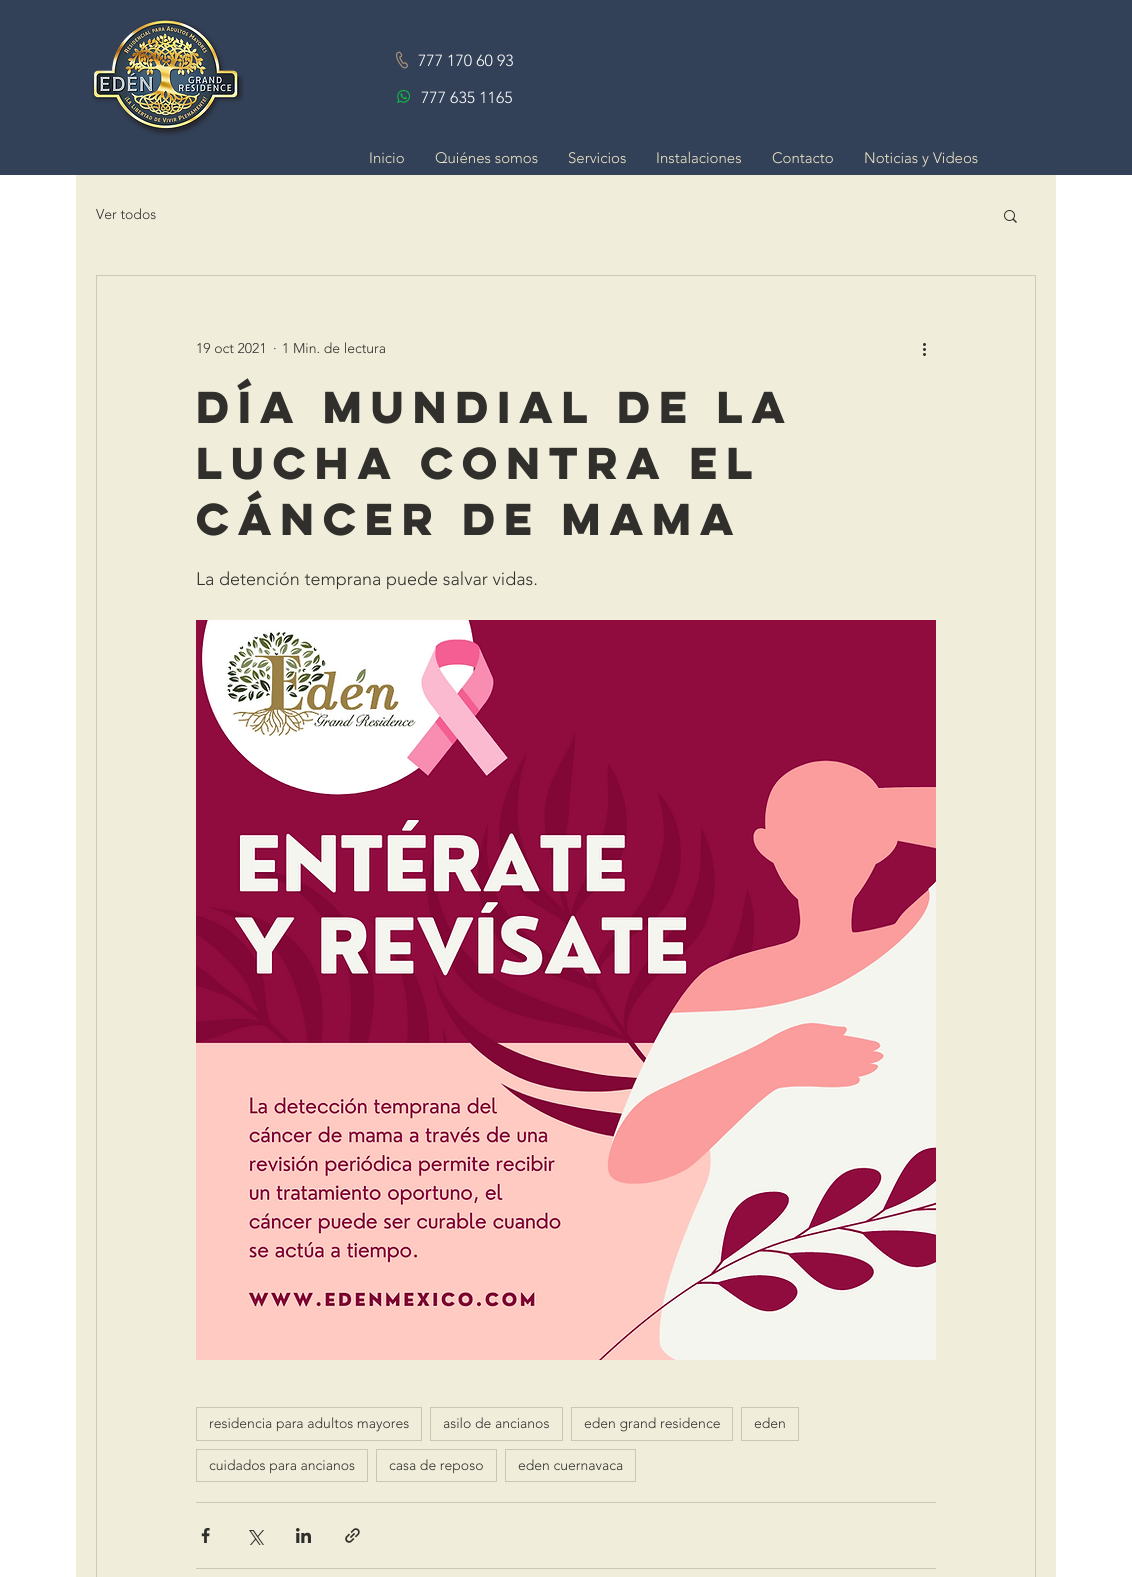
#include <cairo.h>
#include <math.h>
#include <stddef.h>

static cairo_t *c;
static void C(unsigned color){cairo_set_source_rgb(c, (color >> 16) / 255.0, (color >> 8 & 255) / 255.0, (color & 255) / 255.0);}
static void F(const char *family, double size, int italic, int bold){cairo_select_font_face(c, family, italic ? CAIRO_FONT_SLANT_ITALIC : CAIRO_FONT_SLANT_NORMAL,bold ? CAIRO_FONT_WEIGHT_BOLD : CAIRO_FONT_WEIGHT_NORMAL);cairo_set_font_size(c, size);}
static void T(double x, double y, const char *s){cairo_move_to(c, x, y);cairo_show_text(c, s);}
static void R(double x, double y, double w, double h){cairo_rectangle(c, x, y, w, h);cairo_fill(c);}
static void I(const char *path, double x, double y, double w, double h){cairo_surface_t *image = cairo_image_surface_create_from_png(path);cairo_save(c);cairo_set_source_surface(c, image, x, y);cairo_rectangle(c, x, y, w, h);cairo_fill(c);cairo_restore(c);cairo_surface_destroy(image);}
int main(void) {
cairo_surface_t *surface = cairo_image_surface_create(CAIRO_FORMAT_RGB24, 1132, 1577);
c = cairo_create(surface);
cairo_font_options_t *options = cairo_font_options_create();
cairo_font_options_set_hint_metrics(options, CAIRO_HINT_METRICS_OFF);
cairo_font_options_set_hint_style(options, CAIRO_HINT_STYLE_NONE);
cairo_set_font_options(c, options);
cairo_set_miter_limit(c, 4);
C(0xffffff);
cairo_paint(c);
C(0x324158);
R(0,0,1132,175);
I("1.png",91,18,153,118);
I("2.png",396,51,12,18);
F("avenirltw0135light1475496 Light",16,0,0);
C(0xffffff);
T(418,66,"777 170 60 93");
I("3.png",397,90,13,13);
T(421,103,"777 635 1165");
F("avenirltw0135light1475496 Light",15,0,0);
C(0xefe6c6);
T(369,163,"Inicio");
T(435,163,"Quiénes somos");
T(568,163,"Servicios");
T(656,163,"Instalaciones");
T(772,163,"Contacto");
T(864,163,"Noticias y Videos");
C(0xf0edda);
R(76,175,980,1402);
F("avenirltw0135light1475496 Light",14,0,0);
C(0x302f2c);
T(96,219,"Ver todos");
I("4.png",1004,210,13,13);
cairo_rectangle(c,96.5,275.5,939,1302);
C(0xcccab9);
cairo_set_line_width(c,1);
cairo_stroke(c);
C(0x302f2c);
T(196,353,"19 oct 2021");
T(273,353,"·");
T(282,353,"1 Min. de lectura");
I("5.png",923,343,3,13);
F("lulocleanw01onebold",40,0,1);
T(196,423,"Día Mundial de la");
T(196,479,"lucha contra el");
T(196,535,"cáncer de mama");
F("avenirltw0135light1475496 Light",18,0,0);
T(196,585,"La detención temprana puede salvar vidas.");
I("6.png",196,620,740,740);
cairo_rectangle(c,196.5,1407.5,225,33);
C(0xcac7b7);
cairo_stroke(c);
F("avenirltw0135light1475496 Light",14,0,0);
C(0x302f2c);
T(209,1428,"residencia para adultos mayores");
cairo_rectangle(c,430.5,1407.5,132,33);
C(0xcac7b7);
cairo_stroke(c);
C(0x302f2c);
T(443,1428,"asilo de ancianos");
cairo_rectangle(c,571.5,1407.5,161,33);
C(0xcac7b7);
cairo_stroke(c);
C(0x302f2c);
T(584,1428,"eden grand residence");
cairo_rectangle(c,741.5,1407.5,57,33);
C(0xcac7b7);
cairo_stroke(c);
C(0x302f2c);
T(754,1428,"eden");
cairo_rectangle(c,196.5,1449.5,171,32);
C(0xcac7b7);
cairo_stroke(c);
C(0x302f2c);
T(209,1470,"cuidados para ancianos");
cairo_rectangle(c,376.5,1449.5,120,32);
C(0xcac7b7);
cairo_stroke(c);
C(0x302f2c);
T(389,1470,"casa de reposo");
cairo_rectangle(c,505.5,1449.5,130,32);
C(0xcac7b7);
cairo_stroke(c);
C(0x302f2c);
T(518,1470,"eden cuernavaca");
C(0xcac7b7);
R(196,1502,740,1);
I("7.png",201,1528,9,15);
I("8.png",249,1530,15,15);
I("9.png",296,1528,15,15);
I("10.png",345,1528,15,15);
R(196,1568,740,1);
cairo_surface_write_to_png(surface, "o.png");
cairo_font_options_destroy(options);
cairo_destroy(c);
cairo_surface_destroy(surface);
return 0;
}
